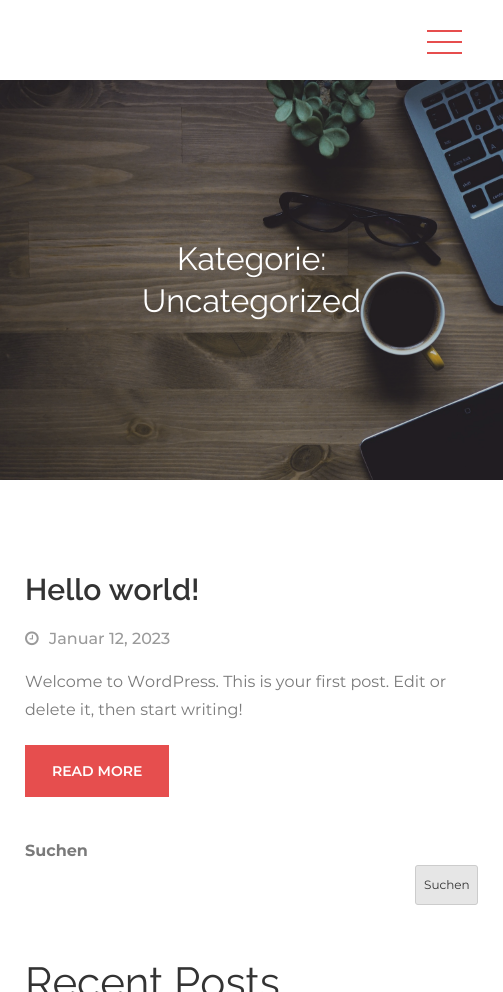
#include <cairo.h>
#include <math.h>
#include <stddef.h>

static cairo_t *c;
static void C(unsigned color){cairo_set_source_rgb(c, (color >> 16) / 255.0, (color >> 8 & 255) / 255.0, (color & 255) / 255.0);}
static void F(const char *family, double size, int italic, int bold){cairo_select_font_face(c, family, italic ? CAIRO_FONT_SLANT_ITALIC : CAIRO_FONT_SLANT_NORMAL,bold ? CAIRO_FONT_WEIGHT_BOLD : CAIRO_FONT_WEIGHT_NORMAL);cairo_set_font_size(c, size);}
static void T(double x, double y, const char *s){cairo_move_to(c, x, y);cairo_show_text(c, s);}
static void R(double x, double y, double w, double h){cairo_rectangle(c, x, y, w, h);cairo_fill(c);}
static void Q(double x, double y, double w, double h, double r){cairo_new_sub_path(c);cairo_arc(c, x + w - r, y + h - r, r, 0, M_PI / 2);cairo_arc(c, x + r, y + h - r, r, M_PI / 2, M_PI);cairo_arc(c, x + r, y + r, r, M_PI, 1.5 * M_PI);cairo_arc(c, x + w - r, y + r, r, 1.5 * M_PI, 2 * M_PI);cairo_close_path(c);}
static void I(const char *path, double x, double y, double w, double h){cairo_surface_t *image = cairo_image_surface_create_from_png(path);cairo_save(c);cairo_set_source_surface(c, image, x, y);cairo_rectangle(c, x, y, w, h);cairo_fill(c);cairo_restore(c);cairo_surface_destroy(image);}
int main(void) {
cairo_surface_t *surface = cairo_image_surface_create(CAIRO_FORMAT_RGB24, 503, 992);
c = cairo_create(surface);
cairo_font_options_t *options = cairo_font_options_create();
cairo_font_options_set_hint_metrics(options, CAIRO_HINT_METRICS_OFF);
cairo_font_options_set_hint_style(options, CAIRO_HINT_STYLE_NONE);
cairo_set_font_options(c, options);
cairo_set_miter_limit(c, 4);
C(0xffffff);
cairo_paint(c);
C(0xe64e4e);
R(427,30,35,2);
R(427,41,35,2);
R(427,52,35,2);
I("1.png",0,80,503,400);
F("Raleway",32,0,0);
C(0xffffff);
T(177,270,"Kategorie:");
T(142,312,"Uncategorized");
F("Raleway SemiBold",30,0,0);
C(0x333333);
T(25,600,"Hello world!");
I("2.png",25,631,14,15);
F("Montserrat Medium",16,0,0);
C(0x9a9a9a);
T(49,644,"Januar 12, 2023");
F("Montserrat",16,0,0);
C(0x7a7a7a);
T(25,687,"Welcome to WordPress. This is your first post. Edit or");
T(25,715,"delete it, then start writing!");
C(0xe64e4e);
R(25,745,144,52);
F("Montserrat SemiBold",14,0,0);
C(0xffffff);
T(52,776,"READ MORE");
F("Montserrat",16,0,1);
C(0x7a7a7a);
T(25,856,"Suchen");
C(0xe6e6e6);
Q(415.5,865.5,62,39,2.5);
cairo_fill_preserve(c);
C(0xcccccc);
cairo_set_line_width(c,1);
cairo_stroke(c);
F("Montserrat",12,0,0);
C(0x333333);
T(424,889,"Suchen");
F("Raleway",42,0,0);
T(25,997,"Recent Posts");
cairo_surface_write_to_png(surface, "o.png");
cairo_font_options_destroy(options);
cairo_destroy(c);
cairo_surface_destroy(surface);
return 0;
}
